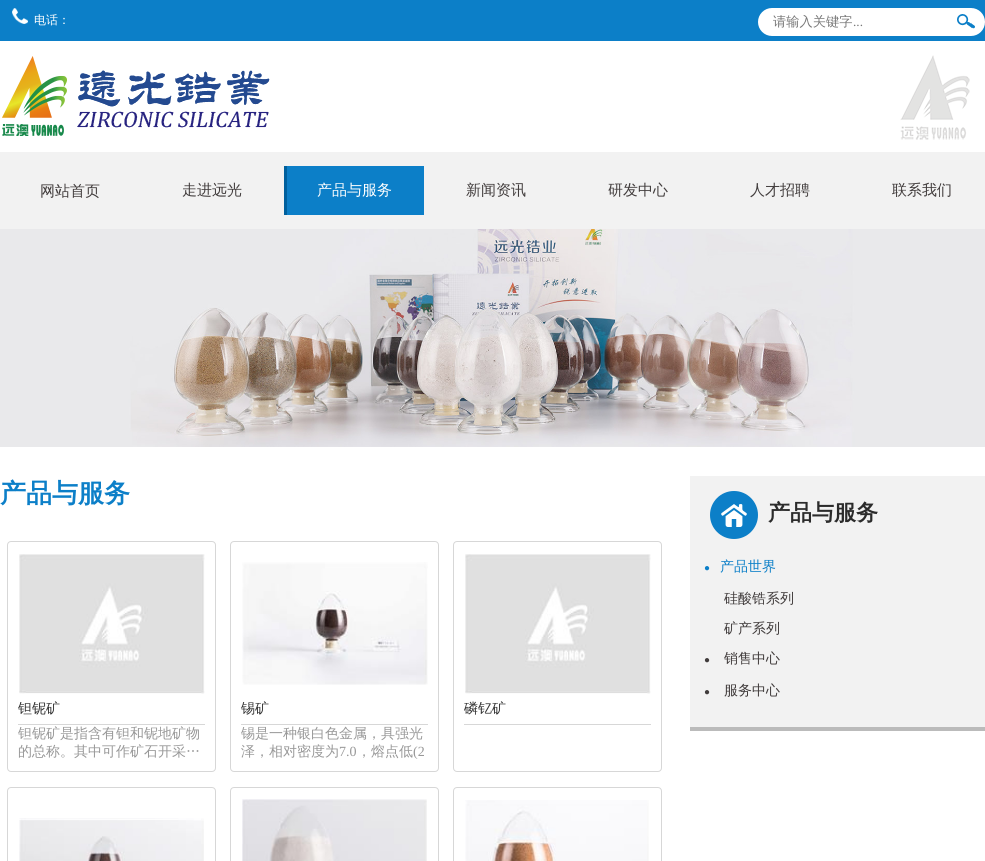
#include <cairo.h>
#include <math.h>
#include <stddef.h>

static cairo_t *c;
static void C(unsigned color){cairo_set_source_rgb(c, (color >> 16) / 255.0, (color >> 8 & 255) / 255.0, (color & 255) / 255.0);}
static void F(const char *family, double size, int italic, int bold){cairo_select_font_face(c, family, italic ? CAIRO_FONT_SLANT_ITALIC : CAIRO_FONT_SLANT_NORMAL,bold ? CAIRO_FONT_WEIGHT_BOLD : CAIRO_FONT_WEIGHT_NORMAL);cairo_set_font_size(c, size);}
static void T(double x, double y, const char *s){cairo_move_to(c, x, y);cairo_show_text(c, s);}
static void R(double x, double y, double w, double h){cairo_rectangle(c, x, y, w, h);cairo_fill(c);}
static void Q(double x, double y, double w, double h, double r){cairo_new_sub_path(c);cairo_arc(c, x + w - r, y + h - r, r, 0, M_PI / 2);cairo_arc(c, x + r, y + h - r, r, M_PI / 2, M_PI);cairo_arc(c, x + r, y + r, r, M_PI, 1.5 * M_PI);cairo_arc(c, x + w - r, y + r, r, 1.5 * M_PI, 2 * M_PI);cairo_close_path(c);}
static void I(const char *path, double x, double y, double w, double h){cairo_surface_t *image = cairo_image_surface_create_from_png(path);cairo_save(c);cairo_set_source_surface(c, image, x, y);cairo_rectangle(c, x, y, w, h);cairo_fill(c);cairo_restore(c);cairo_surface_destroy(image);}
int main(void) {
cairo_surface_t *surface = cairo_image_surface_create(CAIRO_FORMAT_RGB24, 985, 861);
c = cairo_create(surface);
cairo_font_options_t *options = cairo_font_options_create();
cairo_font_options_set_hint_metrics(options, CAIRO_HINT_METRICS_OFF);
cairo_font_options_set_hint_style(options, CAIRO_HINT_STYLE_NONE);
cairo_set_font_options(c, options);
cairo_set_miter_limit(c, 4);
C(0xffffff);
cairo_paint(c);
C(0x0c7fc8);
R(0,0,985,41);
I("1.png",12,8,16,16);
F("WenQuanYi Zen Hei Medium",12,0,0);
C(0xffffff);
T(34,24,"电话：");
Q(758,8,227,28,14);
cairo_fill(c);
F("WenQuanYi Zen Hei Medium",13.25,0,0);
C(0x787878);
T(773,26,"请输入关键字");
F("Liberation Serif",13.25,0,0);
T(853,26,"...");
I("2.png",957,14,18,15);
I("3.png",900,55,70,85);
I("4.png",2,56,268,80);
C(0xf2f2f2);
R(0,152,985,77);
F("WenQuanYi Zen Hei Medium",15,0,0);
C(0x413c3c);
T(40,196,"网站首页");
T(182,195,"走进远光");
C(0x0c7fc8);
R(287,166,137,49);
C(0x00609d);
R(284,166,3,49);
C(0xffffff);
T(317,195,"产品与服务");
C(0x413c3c);
T(466,195,"新闻资讯");
T(608,195,"研发中心");
T(750,195,"人才招聘");
T(892,195,"联系我们");
I("5.png",0,229,985,218);
F("WenQuanYi Zen Hei",26,0,1);
C(0x0c7fc8);
T(0,502,"产品与服务");
Q(7.5,541.5,208,230,3.5);
C(0xd7d7d7);
cairo_set_line_width(c,1);
cairo_stroke(c);
I("6.png",19,554,186,140);
R(18,724,187,1);
F("WenQuanYi Zen Hei Medium",14,0,0);
C(0x333333);
T(18,713,"钽铌矿");
C(0x989898);
T(18,738,"钽铌矿是指含有钽和铌地矿物");
T(18,756,"的总称。其中可作矿石开采…");
Q(230.5,541.5,208,230,3.5);
C(0xd7d7d7);
cairo_stroke(c);
I("7.png",242,562,186,123);
R(241,724,187,1);
C(0x333333);
T(241,713,"锡矿");
C(0x989898);
T(241,738,"锡是一种银白色金属，具强光");
T(241,756,"泽，相对密度为");
F("Liberation Serif",14,0,0);
T(339,756,"7.0");
F("WenQuanYi Zen Hei Medium",14,0,0);
T(357,756,"，熔点低");
F("Liberation Serif",14,0,0);
T(413,756,"(2");
Q(453.5,541.5,208,230,3.5);
C(0xd7d7d7);
cairo_stroke(c);
I("6.png",465,554,186,140);
R(464,724,187,1);
F("WenQuanYi Zen Hei Medium",14,0,0);
C(0x333333);
T(464,713,"磷钇矿");
Q(7.5,787.5,208,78,3.5);
C(0xd7d7d7);
cairo_stroke(c);
I("8.png",19,818,185,43);
Q(230.5,787.5,208,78,3.5);
cairo_stroke(c);
I("9.png",242,799,185,62);
Q(453.5,787.5,208,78,3.5);
cairo_stroke(c);
I("10.png",465,800,184,61);
C(0xf2f2f2);
R(690,476,295,251);
C(0xbbbbbb);
R(690,727,295,4);
C(0x0c7fc8);
cairo_arc(c,734,515,24,0,2 * M_PI);
cairo_fill(c);
I("11.png",721,504,26,23);
F("WenQuanYi Zen Hei",22,0,1);
C(0x2b2b2b);
T(768,520,"产品与服务");
F("Liberation Sans",10,0,0);
C(0x0c7fc8);
T(704,571,"●");
F("WenQuanYi Zen Hei Medium",14,0,0);
T(720,571,"产品世界");
C(0x413c3c);
T(724,603,"硅酸锆系列");
T(724,633,"矿产系列");
F("Liberation Sans",10,0,0);
T(704,663,"●");
F("WenQuanYi Zen Hei Medium",14,0,0);
T(724,663,"销售中心");
F("Liberation Sans",10,0,0);
T(704,695,"●");
F("WenQuanYi Zen Hei Medium",14,0,0);
T(724,695,"服务中心");
cairo_surface_write_to_png(surface, "o.png");
cairo_font_options_destroy(options);
cairo_destroy(c);
cairo_surface_destroy(surface);
return 0;
}
